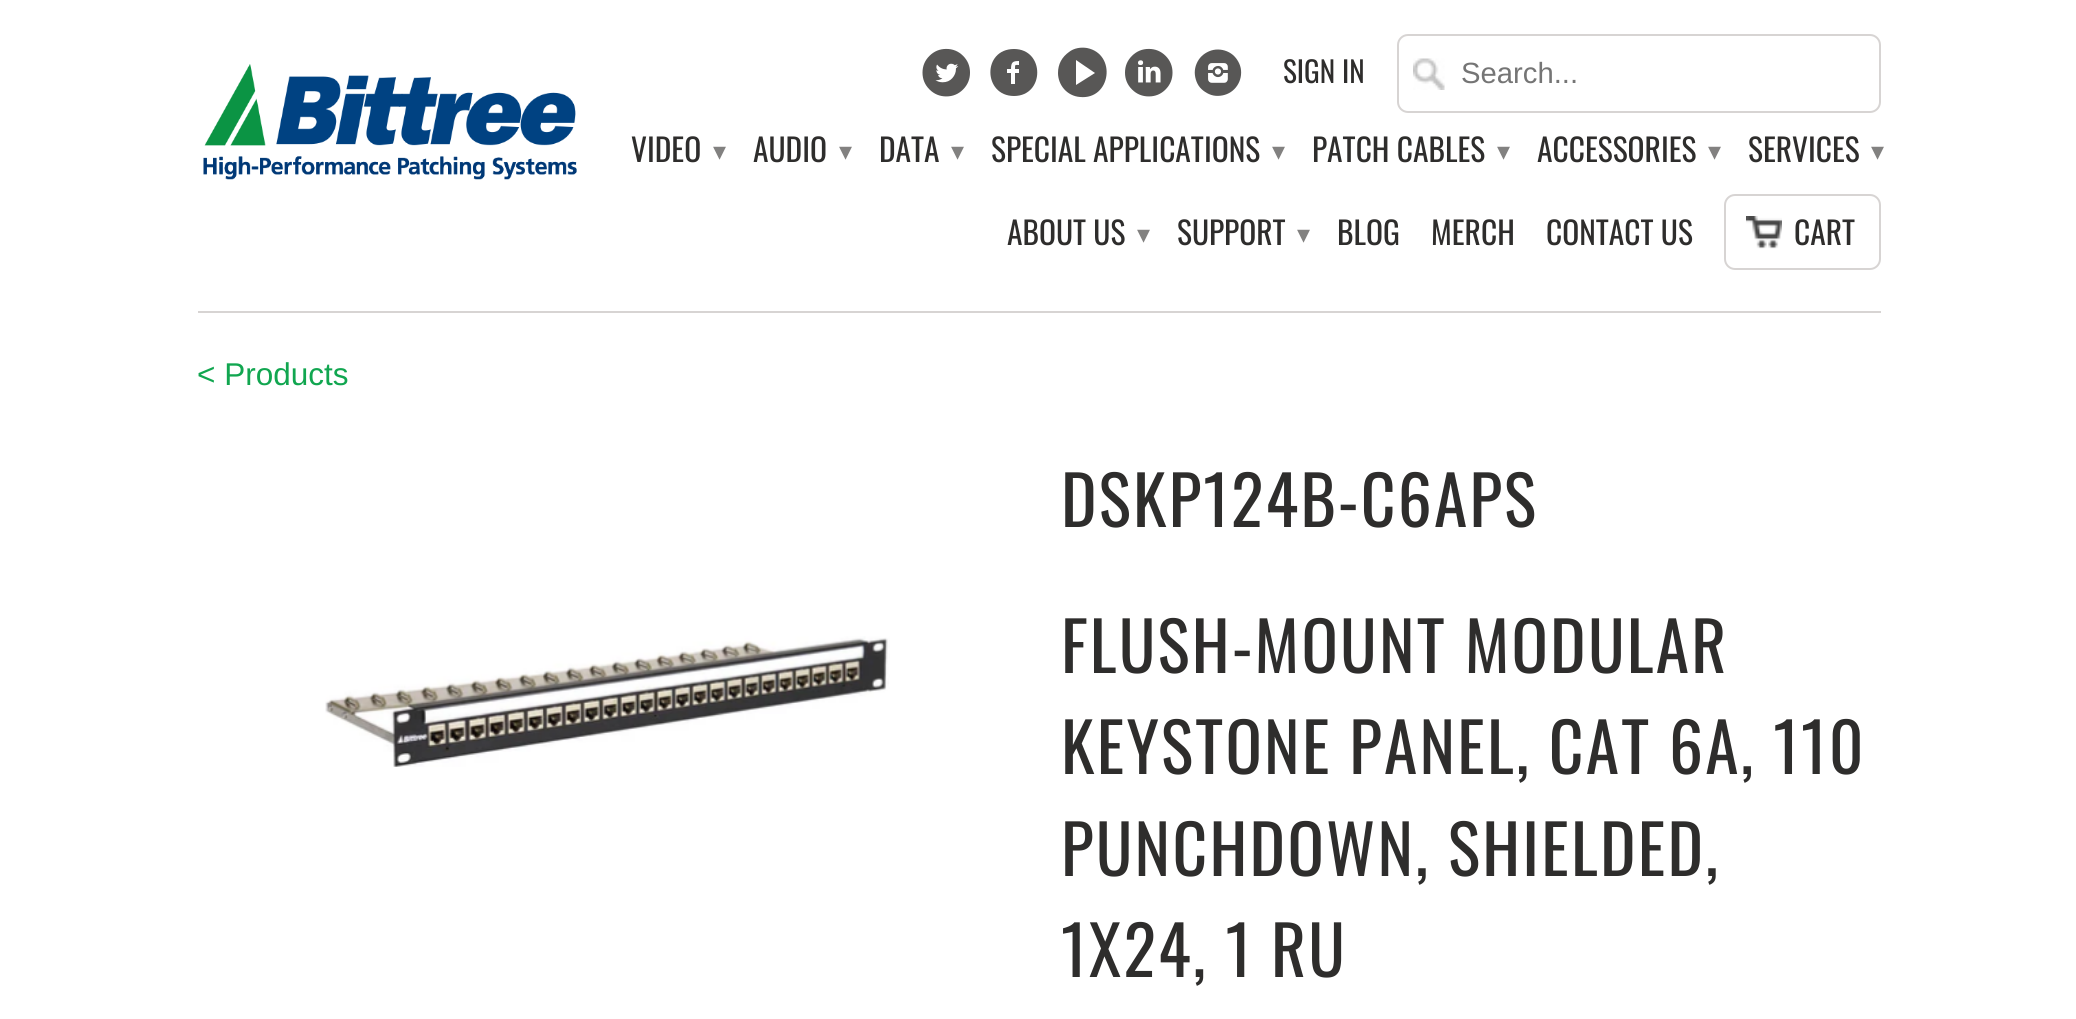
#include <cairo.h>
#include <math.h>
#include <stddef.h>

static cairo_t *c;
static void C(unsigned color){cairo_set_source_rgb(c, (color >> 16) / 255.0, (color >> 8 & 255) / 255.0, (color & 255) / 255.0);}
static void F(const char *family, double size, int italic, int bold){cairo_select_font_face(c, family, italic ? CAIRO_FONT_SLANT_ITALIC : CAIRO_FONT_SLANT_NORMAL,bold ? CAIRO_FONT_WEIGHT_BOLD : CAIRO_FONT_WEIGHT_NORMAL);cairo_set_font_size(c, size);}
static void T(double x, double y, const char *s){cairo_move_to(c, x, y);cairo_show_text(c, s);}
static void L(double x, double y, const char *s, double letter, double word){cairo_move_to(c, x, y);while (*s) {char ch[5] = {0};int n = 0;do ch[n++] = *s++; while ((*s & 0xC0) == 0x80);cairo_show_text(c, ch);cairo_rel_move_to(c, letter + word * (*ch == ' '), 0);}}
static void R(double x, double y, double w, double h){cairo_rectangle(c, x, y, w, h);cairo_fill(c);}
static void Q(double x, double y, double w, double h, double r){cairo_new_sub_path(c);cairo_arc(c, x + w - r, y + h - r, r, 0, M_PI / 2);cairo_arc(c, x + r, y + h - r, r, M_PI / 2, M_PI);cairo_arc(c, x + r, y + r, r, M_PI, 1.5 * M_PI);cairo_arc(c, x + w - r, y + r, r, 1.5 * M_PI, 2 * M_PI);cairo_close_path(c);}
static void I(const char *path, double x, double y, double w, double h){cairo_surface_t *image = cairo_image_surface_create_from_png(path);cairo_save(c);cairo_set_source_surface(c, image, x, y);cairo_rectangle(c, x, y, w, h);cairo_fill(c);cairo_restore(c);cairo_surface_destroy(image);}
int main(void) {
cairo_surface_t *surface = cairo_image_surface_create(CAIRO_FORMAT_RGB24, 2076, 1019);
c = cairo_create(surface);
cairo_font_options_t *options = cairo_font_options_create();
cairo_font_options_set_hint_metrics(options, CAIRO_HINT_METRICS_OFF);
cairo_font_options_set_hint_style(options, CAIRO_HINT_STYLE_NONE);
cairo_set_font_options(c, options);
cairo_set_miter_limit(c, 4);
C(0xffffff);
cairo_paint(c);
C(0xd7d4d3);
R(198,311,1683,2);
I("1.png",203,64,374,116);
I("2.png",922,48,48,49);
C(0x585756);
cairo_new_path(c);
cairo_move_to(c,1014,49);
cairo_curve_to(c,1045,49,1045,96,1014,96);
cairo_curve_to(c,983,96,982,49,1014,49);
cairo_close_path(c);
cairo_move_to(c,1019,65);
cairo_line_to(c,1019,61);
cairo_curve_to(c,1013,61,1011,62,1011,69);
cairo_line_to(c,1007,69);
cairo_line_to(c,1007,73);
cairo_line_to(c,1011,73);
cairo_line_to(c,1011,84);
cairo_line_to(c,1015,84);
cairo_line_to(c,1015,73);
cairo_line_to(c,1019,73);
cairo_line_to(c,1019,69);
cairo_line_to(c,1015,69);
cairo_curve_to(c,1015,64,1015,65,1019,65);
cairo_close_path(c);
cairo_fill(c);
cairo_new_path(c);
cairo_move_to(c,1058,73);
cairo_curve_to(c,1058,64,1062,57,1069,52);
cairo_curve_to(c,1074,48,1081,47,1087,48);
cairo_curve_to(c,1117,54,1111,100,1080,97);
cairo_curve_to(c,1067,96,1058,85,1058,73);
cairo_close_path(c);
cairo_move_to(c,1076,85);
cairo_line_to(c,1095,73);
cairo_line_to(c,1076,60);
cairo_close_path(c);
cairo_fill(c);
I("3.png",1125,48,48,49);
I("4.png",1194,49,48,47);
F("Oswald",29.25,0,0);
C(0x2e2d2c);
T(1283,83,"SIGN IN");
I("5.png",1413,58,32,32);
Q(1398,35,482,77,10);
C(0xd7d4d3);
cairo_stroke(c);
F("Liberation Sans",29.25,0,0);
C(0x757575);
T(1461,83,"Search...");
F("Oswald",31.5,0,0);
C(0x2e2d2c);
T(631,162,"VIDEO");
F("DejaVu Sans",26,0,0);
C(0x828180);
T(713,160,"▾");
F("Oswald",31.5,0,0);
C(0x2e2d2c);
T(753,162,"AUDIO");
F("DejaVu Sans",26,0,0);
C(0x828180);
T(839,160,"▾");
F("Oswald",31.5,0,0);
C(0x2e2d2c);
T(879,162,"DATA");
F("DejaVu Sans",26,0,0);
C(0x828180);
T(951,160,"▾");
F("Oswald",31.5,0,0);
C(0x2e2d2c);
T(991,162,"SPECIAL APPLICATIONS");
F("DejaVu Sans",26,0,0);
C(0x828180);
T(1272,160,"▾");
F("Oswald",31.5,0,0);
C(0x2e2d2c);
T(1312,162,"PATCH CABLES");
F("DejaVu Sans",26,0,0);
C(0x828180);
T(1497,160,"▾");
F("Oswald",31.5,0,0);
C(0x2e2d2c);
T(1537,162,"ACCESSORIES");
F("DejaVu Sans",26,0,0);
C(0x828180);
T(1708,160,"▾");
F("Oswald",31.5,0,0);
C(0x2e2d2c);
T(1748,162,"SERVICES");
F("DejaVu Sans",26,0,0);
C(0x828180);
T(1871,160,"▾");
F("Oswald",31.5,0,0);
C(0x2e2d2c);
T(1007,245,"ABOUT US");
F("DejaVu Sans",26,0,0);
C(0x828180);
T(1137,243,"▾");
F("Oswald",31.5,0,0);
C(0x2e2d2c);
T(1177,245,"SUPPORT");
F("DejaVu Sans",26,0,0);
C(0x828180);
T(1297,243,"▾");
F("Oswald",31.5,0,0);
C(0x2e2d2c);
T(1337,245,"BLOG");
T(1431,245,"MERCH");
T(1546,245,"CONTACT US");
I("6.png",1746,216,36,33);
Q(1725,195,155,74,10);
C(0xd7d4d3);
cairo_stroke(c);
C(0x2e2d2c);
T(1794,245,"CART");
F("Liberation Sans",31.5,0,0);
C(0x11a650);
T(197,385,"< Products");
I("7.png",325,636,565,131);
F("Oswald",67.5,0,0);
C(0x2e2d2c);
L(1061,527,"DSKP124B-C6APS",2.25,0);
L(1061,673,"FLUSH-MOUNT MODULAR",2.25,0);
L(1061,774,"KEYSTONE PANEL, CAT 6A, 110",2.25,0);
L(1061,876,"PUNCHDOWN, SHIELDED,",2.25,0);
L(1061,977,"1X24, 1 RU",2.25,0);
cairo_surface_write_to_png(surface, "o.png");
cairo_font_options_destroy(options);
cairo_destroy(c);
cairo_surface_destroy(surface);
return 0;
}
